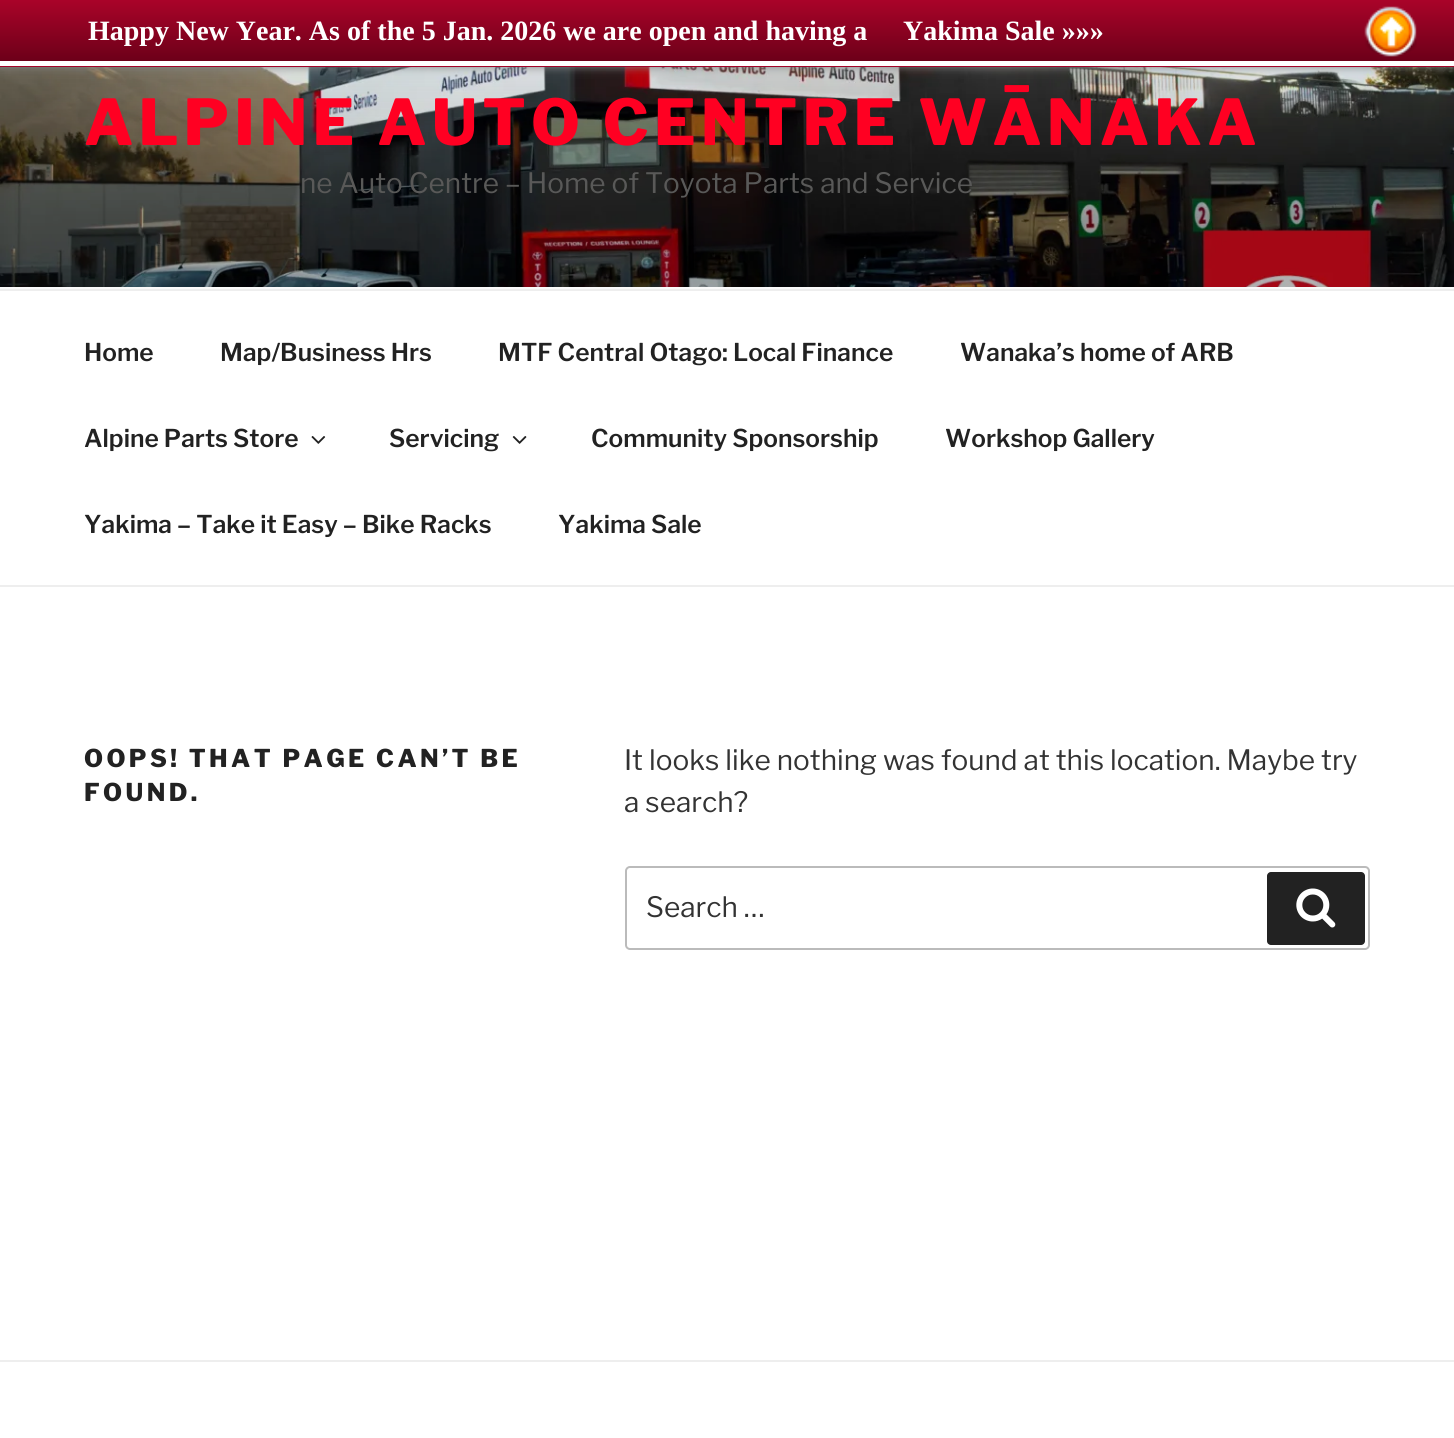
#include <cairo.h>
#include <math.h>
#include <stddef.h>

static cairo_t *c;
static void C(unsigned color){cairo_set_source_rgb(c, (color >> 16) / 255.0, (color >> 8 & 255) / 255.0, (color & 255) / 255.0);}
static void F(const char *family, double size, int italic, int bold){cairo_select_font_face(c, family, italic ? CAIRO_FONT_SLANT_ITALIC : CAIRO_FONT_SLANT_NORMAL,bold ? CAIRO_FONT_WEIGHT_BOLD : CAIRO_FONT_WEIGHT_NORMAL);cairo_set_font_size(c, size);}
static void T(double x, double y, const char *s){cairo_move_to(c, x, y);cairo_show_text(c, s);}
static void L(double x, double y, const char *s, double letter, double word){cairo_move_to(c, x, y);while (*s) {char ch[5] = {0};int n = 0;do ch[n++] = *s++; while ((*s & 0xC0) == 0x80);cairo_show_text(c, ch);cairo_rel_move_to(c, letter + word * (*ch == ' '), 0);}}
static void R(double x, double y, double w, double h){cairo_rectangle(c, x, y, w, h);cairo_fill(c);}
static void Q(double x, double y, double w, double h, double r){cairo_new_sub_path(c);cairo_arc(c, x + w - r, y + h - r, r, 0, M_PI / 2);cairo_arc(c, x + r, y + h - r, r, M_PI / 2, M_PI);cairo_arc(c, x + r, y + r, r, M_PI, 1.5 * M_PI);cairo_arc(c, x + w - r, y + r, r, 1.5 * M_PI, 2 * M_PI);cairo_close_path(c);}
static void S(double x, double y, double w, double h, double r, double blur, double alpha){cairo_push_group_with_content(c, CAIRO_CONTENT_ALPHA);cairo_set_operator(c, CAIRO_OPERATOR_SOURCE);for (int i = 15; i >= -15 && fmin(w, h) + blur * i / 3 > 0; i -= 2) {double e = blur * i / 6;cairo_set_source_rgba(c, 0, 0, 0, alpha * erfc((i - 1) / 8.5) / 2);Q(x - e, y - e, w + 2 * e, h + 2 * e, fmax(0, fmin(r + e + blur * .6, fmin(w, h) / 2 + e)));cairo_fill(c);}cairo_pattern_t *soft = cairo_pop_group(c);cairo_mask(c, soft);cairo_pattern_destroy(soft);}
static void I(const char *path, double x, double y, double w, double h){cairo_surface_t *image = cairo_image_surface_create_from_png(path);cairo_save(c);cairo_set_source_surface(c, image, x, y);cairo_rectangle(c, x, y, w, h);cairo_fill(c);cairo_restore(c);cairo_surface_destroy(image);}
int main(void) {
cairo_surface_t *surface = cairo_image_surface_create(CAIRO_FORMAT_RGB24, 1454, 1438);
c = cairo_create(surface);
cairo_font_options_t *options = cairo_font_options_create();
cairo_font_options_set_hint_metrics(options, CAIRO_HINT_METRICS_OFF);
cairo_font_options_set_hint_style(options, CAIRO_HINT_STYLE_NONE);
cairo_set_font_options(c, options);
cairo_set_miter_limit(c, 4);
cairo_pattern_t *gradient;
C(0xffffff);
cairo_paint(c);
I("2.png",0,67,1454,220);
C(0x888888);
S(0,0,1454,67,0,4.5,1);
gradient = cairo_pattern_create_linear(727,0,727,61);
cairo_pattern_add_color_stop_rgba(gradient,0,0.663,0.012,0.161,1);
cairo_pattern_add_color_stop_rgba(gradient,.44,0.561,0.008,0.133,1);
cairo_pattern_add_color_stop_rgba(gradient,1,0.427,0,0.098,1);
cairo_set_source(c,gradient);
cairo_pattern_destroy(gradient);
R(0,0,1454,61);
gradient = cairo_pattern_create_linear(727,61,727,123);
cairo_pattern_add_color_stop_rgba(gradient,0,0.663,0.012,0.161,1);
cairo_pattern_add_color_stop_rgba(gradient,.44,0.561,0.008,0.133,1);
cairo_pattern_add_color_stop_rgba(gradient,1,0.427,0,0.098,1);
cairo_set_source(c,gradient);
cairo_pattern_destroy(gradient);
R(0,66,1454,1);
C(0xffffff);
R(0,61,1454,5);
F("Liberation Serif",28,0,1);
T(88,40,"Happy New Year. As of the 5 Jan. 2026 we are open and having a");
T(903,40,"Yakima Sale »»»");
I("1.png",1364,6,53,51);
C(0xfafafa);
R(0,287,1454,2);
F("Libre Franklin Thin",63,0,0);
C(0xff0022);
L(84,145,"ALPINE AUTO CENTRE WĀNAKA",5.05,0);
F("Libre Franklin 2 Thin",28,0,0);
C(0x595958);
T(300,193,"ne Auto Centre – Home of Toyota Parts and Service");
C(0xeeeeee);
R(0,289,1454,2);
R(0,585,1454,2);
F("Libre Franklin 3 Thin",24.5,0,0);
C(0x222222);
T(84,361,"Home");
T(220,361,"Map/Business Hrs");
T(498,361,"MTF Central Otago: Local Finance");
T(960,361,"Wanaka’s home of ARB");
T(84,447,"Alpine Parts Store");
I("3.png",311,436,15,8);
T(389,447,"Servicing");
I("4.png",512,436,15,8);
T(591,447,"Community Sponsorship");
T(945,447,"Workshop Gallery");
T(84,533,"Yakima – Take it Easy – Bike Racks");
T(558,533,"Yakima Sale");
F("Libre Franklin Thin",24.5,0,0);
L(84,767,"OOPS! THAT PAGE CAN’T BE",3.4,0);
L(84,801,"FOUND.",3.4,0);
F("Libre Franklin 2 Thin",28,0,0);
C(0x333333);
T(624,770,"It looks like nothing was found at this location. Maybe try");
T(624,812,"a search?");
Q(626,867,743,82,4);
C(0xbbbbbb);
cairo_stroke(c);
C(0x333333);
T(646,917,"Search …");
C(0x222222);
Q(1267,872,98,73,4);
cairo_fill(c);
I("5.png",1296,888,40,40);
C(0xeeeeee);
R(0,1360,1454,2);
cairo_surface_write_to_png(surface, "o.png");
cairo_font_options_destroy(options);
cairo_destroy(c);
cairo_surface_destroy(surface);
return 0;
}
